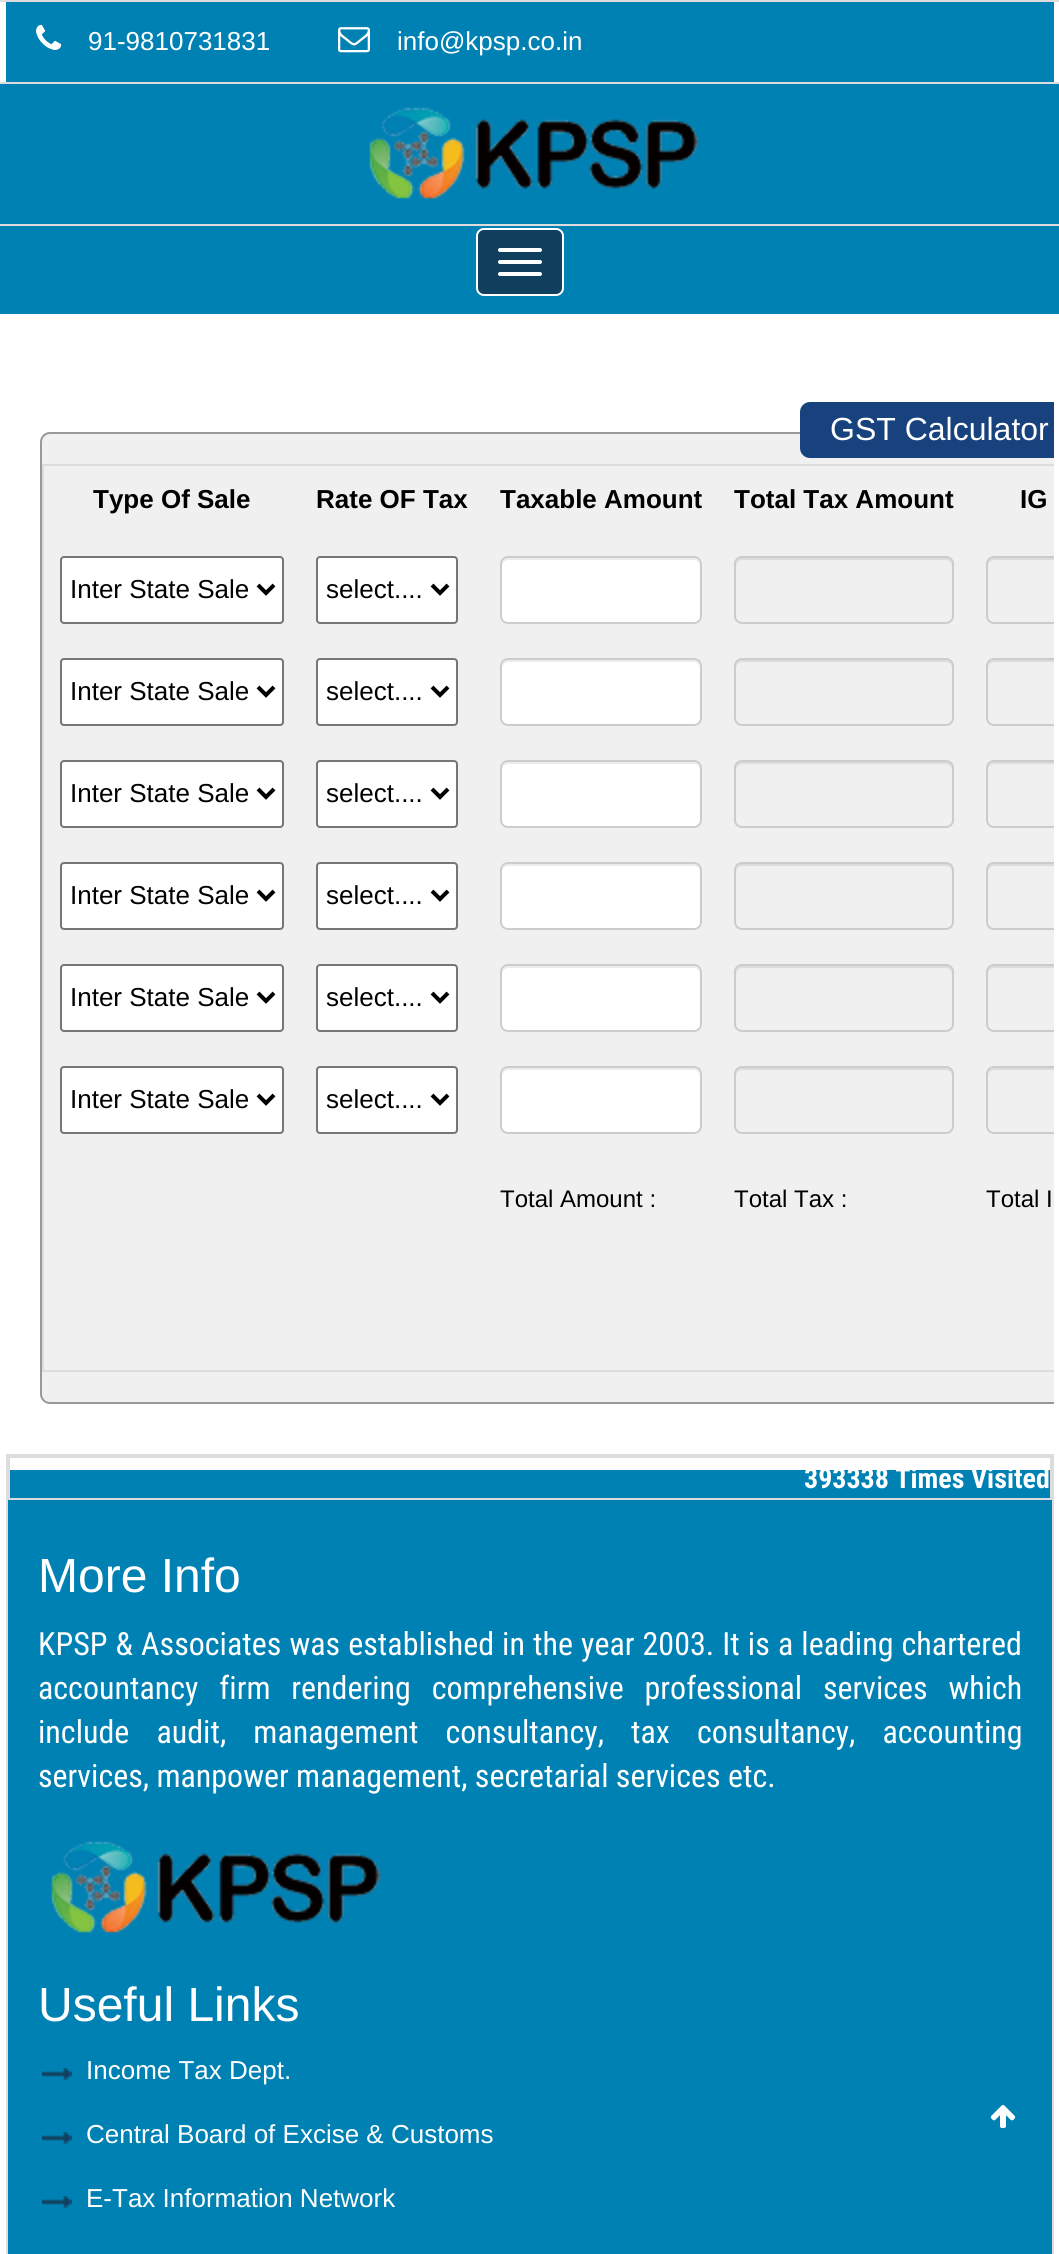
#include <cairo.h>
#include <math.h>
#include <stddef.h>

static cairo_t *c;
static void C(unsigned color){cairo_set_source_rgb(c, (color >> 16) / 255.0, (color >> 8 & 255) / 255.0, (color & 255) / 255.0);}
static void F(const char *family, double size, int italic, int bold){cairo_select_font_face(c, family, italic ? CAIRO_FONT_SLANT_ITALIC : CAIRO_FONT_SLANT_NORMAL,bold ? CAIRO_FONT_WEIGHT_BOLD : CAIRO_FONT_WEIGHT_NORMAL);cairo_set_font_size(c, size);}
static void T(double x, double y, const char *s){cairo_move_to(c, x, y);cairo_show_text(c, s);}
static void L(double x, double y, const char *s, double letter, double word){cairo_move_to(c, x, y);while (*s) {char ch[5] = {0};int n = 0;do ch[n++] = *s++; while ((*s & 0xC0) == 0x80);cairo_show_text(c, ch);cairo_rel_move_to(c, letter + word * (*ch == ' '), 0);}}
static void R(double x, double y, double w, double h){cairo_rectangle(c, x, y, w, h);cairo_fill(c);}
static void Q(double x, double y, double w, double h, double r){cairo_new_sub_path(c);cairo_arc(c, x + w - r, y + h - r, r, 0, M_PI / 2);cairo_arc(c, x + r, y + h - r, r, M_PI / 2, M_PI);cairo_arc(c, x + r, y + r, r, M_PI, 1.5 * M_PI);cairo_arc(c, x + w - r, y + r, r, 1.5 * M_PI, 2 * M_PI);cairo_close_path(c);}
static void I(const char *path, double x, double y, double w, double h){cairo_surface_t *image = cairo_image_surface_create_from_png(path);cairo_save(c);cairo_set_source_surface(c, image, x, y);cairo_rectangle(c, x, y, w, h);cairo_fill(c);cairo_restore(c);cairo_surface_destroy(image);}
int main(void) {
cairo_surface_t *surface = cairo_image_surface_create(CAIRO_FORMAT_RGB24, 1059, 2254);
c = cairo_create(surface);
cairo_font_options_t *options = cairo_font_options_create();
cairo_font_options_set_hint_metrics(options, CAIRO_HINT_METRICS_OFF);
cairo_font_options_set_hint_style(options, CAIRO_HINT_STYLE_NONE);
cairo_set_font_options(c, options);
cairo_set_miter_limit(c, 4);
C(0xffffff);
cairo_paint(c);
cairo_rectangle(c,-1,1,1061,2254);
C(0xdddddd);
cairo_stroke(c);
C(0x0081b4);
R(6,2,1048,80);
I("1.png",36,24,26,26);
F("Liberation Sans",26,0,0);
C(0xffffff);
T(88,50,"91-9810731831");
I("2.png",338,27,32,26);
T(397,50,"info@kpsp.co.in");
C(0x0081b4);
R(0,84,1059,140);
C(0xdddddd);
R(0,82,1059,2);
R(0,224,1059,2);
I("3.png",369,107,330,92);
C(0x0081b4);
R(0,226,1059,88);
C(0x11405f);
Q(477,229,86,66,7);
cairo_fill_preserve(c);
C(0xffffff);
cairo_stroke(c);
Q(498,248,44,4,2);
cairo_fill(c);
Q(498,260,44,4,2);
cairo_fill(c);
Q(498,272,44,4,2);
cairo_fill(c);
C(0xf0f0f0);
cairo_new_path(c);
cairo_move_to(c,50,432);
cairo_line_to(c,1054,432);
cairo_line_to(c,1054,1404);
cairo_line_to(c,50,1404);
cairo_curve_to(c,44.5,1404,40,1399.5,40,1394);
cairo_line_to(c,40,442);
cairo_curve_to(c,40,436.5,44.5,432,50,432);
cairo_close_path(c);
cairo_fill(c);
cairo_save(c);
cairo_rectangle(c,6,314,1048,1140);
cairo_clip(c);
Q(41,433,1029,970,9);
C(0x999999);
cairo_stroke(c);
cairo_restore(c);
C(0x18427d);
cairo_new_path(c);
cairo_move_to(c,810,402);
cairo_line_to(c,1054,402);
cairo_line_to(c,1054,458);
cairo_line_to(c,810,458);
cairo_curve_to(c,804.5,458,800,453.5,800,448);
cairo_line_to(c,800,412);
cairo_curve_to(c,800,406.5,804.5,402,810,402);
cairo_close_path(c);
cairo_fill(c);
F("Liberation Sans",32,0,0);
C(0xffffff);
T(830,440,"GST Calculator");
cairo_save(c);
cairo_rectangle(c,6,314,1048,1140);
cairo_clip(c);
cairo_rectangle(c,43,465,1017,906);
C(0xdddddd);
cairo_stroke(c);
cairo_restore(c);
F("Liberation Sans",26,0,1);
C(0x000000);
T(93,508,"Type Of Sale");
T(316,508,"Rate OF Tax");
T(500,508,"Taxable Amount");
T(734,508,"Total Tax Amount");
T(1020,508,"IG");
C(0xffffff);
Q(61,557,222,66,3);
cairo_fill_preserve(c);
C(0x767676);
cairo_stroke(c);
cairo_new_path(c);
cairo_move_to(c,258,585);
cairo_line_to(c,266,593);
cairo_line_to(c,274,585);
C(0x000000);
cairo_set_line_width(c,4);
cairo_stroke(c);
F("Liberation Sans",26,0,0);
T(70,598,"Inter State Sale");
C(0xffffff);
Q(317,557,140,66,3);
cairo_fill_preserve(c);
C(0x767676);
cairo_set_line_width(c,2);
cairo_stroke(c);
cairo_new_path(c);
cairo_move_to(c,432,585);
cairo_line_to(c,440,593);
cairo_line_to(c,448,585);
C(0x000000);
cairo_set_line_width(c,4);
cairo_stroke(c);
T(326,598,"select....");
C(0xffffff);
Q(500,556,202,68,8);
cairo_fill(c);
C(0xececec);
cairo_new_path(c);
cairo_move_to(c,508,560);
cairo_line_to(c,694,560);
cairo_curve_to(c,697,560,700,563,700,566);
cairo_line_to(c,700,564);
cairo_curve_to(c,700,561,697,558,694,558);
cairo_line_to(c,508,558);
cairo_curve_to(c,505,558,502,561,502,564);
cairo_line_to(c,502,566);
cairo_curve_to(c,502,563,505,560,508,560);
cairo_close_path(c);
cairo_fill(c);
Q(501,557,200,66,7);
C(0xcccccc);
cairo_set_line_width(c,2);
cairo_stroke(c);
C(0xdcdcdc);
cairo_new_path(c);
cairo_move_to(c,742,560);
cairo_line_to(c,946,560);
cairo_curve_to(c,949,560,952,563,952,566);
cairo_line_to(c,952,564);
cairo_curve_to(c,952,561,949,558,946,558);
cairo_line_to(c,742,558);
cairo_curve_to(c,739,558,736,561,736,564);
cairo_line_to(c,736,566);
cairo_curve_to(c,736,563,739,560,742,560);
cairo_close_path(c);
cairo_fill(c);
Q(735,557,218,66,7);
C(0xcccccc);
cairo_stroke(c);
cairo_save(c);
cairo_rectangle(c,44,466,1010,904);
cairo_clip(c);
C(0xdcdcdc);
cairo_new_path(c);
cairo_move_to(c,994,560);
cairo_line_to(c,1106,560);
cairo_curve_to(c,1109,560,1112,563,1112,566);
cairo_line_to(c,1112,564);
cairo_curve_to(c,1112,561,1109,558,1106,558);
cairo_line_to(c,994,558);
cairo_curve_to(c,991,558,988,561,988,564);
cairo_line_to(c,988,566);
cairo_curve_to(c,988,563,991,560,994,560);
cairo_close_path(c);
cairo_fill(c);
Q(987,557,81,66,7);
C(0xcccccc);
cairo_stroke(c);
cairo_restore(c);
C(0xffffff);
Q(61,659,222,66,3);
cairo_fill_preserve(c);
C(0x767676);
cairo_stroke(c);
cairo_new_path(c);
cairo_move_to(c,258,687);
cairo_line_to(c,266,695);
cairo_line_to(c,274,687);
C(0x000000);
cairo_set_line_width(c,4);
cairo_stroke(c);
T(70,700,"Inter State Sale");
C(0xffffff);
Q(317,659,140,66,3);
cairo_fill_preserve(c);
C(0x767676);
cairo_set_line_width(c,2);
cairo_stroke(c);
cairo_new_path(c);
cairo_move_to(c,432,687);
cairo_line_to(c,440,695);
cairo_line_to(c,448,687);
C(0x000000);
cairo_set_line_width(c,4);
cairo_stroke(c);
T(326,700,"select....");
C(0xffffff);
Q(500,658,202,68,8);
cairo_fill(c);
C(0xececec);
cairo_new_path(c);
cairo_move_to(c,508,662);
cairo_line_to(c,694,662);
cairo_curve_to(c,697,662,700,665,700,668);
cairo_line_to(c,700,666);
cairo_curve_to(c,700,663,697,660,694,660);
cairo_line_to(c,508,660);
cairo_curve_to(c,505,660,502,663,502,666);
cairo_line_to(c,502,668);
cairo_curve_to(c,502,665,505,662,508,662);
cairo_close_path(c);
cairo_fill(c);
Q(501,659,200,66,7);
C(0xcccccc);
cairo_set_line_width(c,2);
cairo_stroke(c);
C(0xdcdcdc);
cairo_new_path(c);
cairo_move_to(c,742,662);
cairo_line_to(c,946,662);
cairo_curve_to(c,949,662,952,665,952,668);
cairo_line_to(c,952,666);
cairo_curve_to(c,952,663,949,660,946,660);
cairo_line_to(c,742,660);
cairo_curve_to(c,739,660,736,663,736,666);
cairo_line_to(c,736,668);
cairo_curve_to(c,736,665,739,662,742,662);
cairo_close_path(c);
cairo_fill(c);
Q(735,659,218,66,7);
C(0xcccccc);
cairo_stroke(c);
cairo_save(c);
cairo_rectangle(c,44,466,1010,904);
cairo_clip(c);
C(0xdcdcdc);
cairo_new_path(c);
cairo_move_to(c,994,662);
cairo_line_to(c,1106,662);
cairo_curve_to(c,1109,662,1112,665,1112,668);
cairo_line_to(c,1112,666);
cairo_curve_to(c,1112,663,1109,660,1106,660);
cairo_line_to(c,994,660);
cairo_curve_to(c,991,660,988,663,988,666);
cairo_line_to(c,988,668);
cairo_curve_to(c,988,665,991,662,994,662);
cairo_close_path(c);
cairo_fill(c);
Q(987,659,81,66,7);
C(0xcccccc);
cairo_stroke(c);
cairo_restore(c);
C(0xffffff);
Q(61,761,222,66,3);
cairo_fill_preserve(c);
C(0x767676);
cairo_stroke(c);
cairo_new_path(c);
cairo_move_to(c,258,789);
cairo_line_to(c,266,797);
cairo_line_to(c,274,789);
C(0x000000);
cairo_set_line_width(c,4);
cairo_stroke(c);
T(70,802,"Inter State Sale");
C(0xffffff);
Q(317,761,140,66,3);
cairo_fill_preserve(c);
C(0x767676);
cairo_set_line_width(c,2);
cairo_stroke(c);
cairo_new_path(c);
cairo_move_to(c,432,789);
cairo_line_to(c,440,797);
cairo_line_to(c,448,789);
C(0x000000);
cairo_set_line_width(c,4);
cairo_stroke(c);
T(326,802,"select....");
C(0xffffff);
Q(500,760,202,68,8);
cairo_fill(c);
C(0xececec);
cairo_new_path(c);
cairo_move_to(c,508,764);
cairo_line_to(c,694,764);
cairo_curve_to(c,697,764,700,767,700,770);
cairo_line_to(c,700,768);
cairo_curve_to(c,700,765,697,762,694,762);
cairo_line_to(c,508,762);
cairo_curve_to(c,505,762,502,765,502,768);
cairo_line_to(c,502,770);
cairo_curve_to(c,502,767,505,764,508,764);
cairo_close_path(c);
cairo_fill(c);
Q(501,761,200,66,7);
C(0xcccccc);
cairo_set_line_width(c,2);
cairo_stroke(c);
C(0xdcdcdc);
cairo_new_path(c);
cairo_move_to(c,742,764);
cairo_line_to(c,946,764);
cairo_curve_to(c,949,764,952,767,952,770);
cairo_line_to(c,952,768);
cairo_curve_to(c,952,765,949,762,946,762);
cairo_line_to(c,742,762);
cairo_curve_to(c,739,762,736,765,736,768);
cairo_line_to(c,736,770);
cairo_curve_to(c,736,767,739,764,742,764);
cairo_close_path(c);
cairo_fill(c);
Q(735,761,218,66,7);
C(0xcccccc);
cairo_stroke(c);
cairo_save(c);
cairo_rectangle(c,44,466,1010,904);
cairo_clip(c);
C(0xdcdcdc);
cairo_new_path(c);
cairo_move_to(c,994,764);
cairo_line_to(c,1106,764);
cairo_curve_to(c,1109,764,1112,767,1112,770);
cairo_line_to(c,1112,768);
cairo_curve_to(c,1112,765,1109,762,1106,762);
cairo_line_to(c,994,762);
cairo_curve_to(c,991,762,988,765,988,768);
cairo_line_to(c,988,770);
cairo_curve_to(c,988,767,991,764,994,764);
cairo_close_path(c);
cairo_fill(c);
Q(987,761,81,66,7);
C(0xcccccc);
cairo_stroke(c);
cairo_restore(c);
C(0xffffff);
Q(61,863,222,66,3);
cairo_fill_preserve(c);
C(0x767676);
cairo_stroke(c);
cairo_new_path(c);
cairo_move_to(c,258,891);
cairo_line_to(c,266,899);
cairo_line_to(c,274,891);
C(0x000000);
cairo_set_line_width(c,4);
cairo_stroke(c);
T(70,904,"Inter State Sale");
C(0xffffff);
Q(317,863,140,66,3);
cairo_fill_preserve(c);
C(0x767676);
cairo_set_line_width(c,2);
cairo_stroke(c);
cairo_new_path(c);
cairo_move_to(c,432,891);
cairo_line_to(c,440,899);
cairo_line_to(c,448,891);
C(0x000000);
cairo_set_line_width(c,4);
cairo_stroke(c);
T(326,904,"select....");
C(0xffffff);
Q(500,862,202,68,8);
cairo_fill(c);
C(0xececec);
cairo_new_path(c);
cairo_move_to(c,508,866);
cairo_line_to(c,694,866);
cairo_curve_to(c,697,866,700,869,700,872);
cairo_line_to(c,700,870);
cairo_curve_to(c,700,867,697,864,694,864);
cairo_line_to(c,508,864);
cairo_curve_to(c,505,864,502,867,502,870);
cairo_line_to(c,502,872);
cairo_curve_to(c,502,869,505,866,508,866);
cairo_close_path(c);
cairo_fill(c);
Q(501,863,200,66,7);
C(0xcccccc);
cairo_set_line_width(c,2);
cairo_stroke(c);
C(0xdcdcdc);
cairo_new_path(c);
cairo_move_to(c,742,866);
cairo_line_to(c,946,866);
cairo_curve_to(c,949,866,952,869,952,872);
cairo_line_to(c,952,870);
cairo_curve_to(c,952,867,949,864,946,864);
cairo_line_to(c,742,864);
cairo_curve_to(c,739,864,736,867,736,870);
cairo_line_to(c,736,872);
cairo_curve_to(c,736,869,739,866,742,866);
cairo_close_path(c);
cairo_fill(c);
Q(735,863,218,66,7);
C(0xcccccc);
cairo_stroke(c);
cairo_save(c);
cairo_rectangle(c,44,466,1010,904);
cairo_clip(c);
C(0xdcdcdc);
cairo_new_path(c);
cairo_move_to(c,994,866);
cairo_line_to(c,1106,866);
cairo_curve_to(c,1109,866,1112,869,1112,872);
cairo_line_to(c,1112,870);
cairo_curve_to(c,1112,867,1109,864,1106,864);
cairo_line_to(c,994,864);
cairo_curve_to(c,991,864,988,867,988,870);
cairo_line_to(c,988,872);
cairo_curve_to(c,988,869,991,866,994,866);
cairo_close_path(c);
cairo_fill(c);
Q(987,863,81,66,7);
C(0xcccccc);
cairo_stroke(c);
cairo_restore(c);
C(0xffffff);
Q(61,965,222,66,3);
cairo_fill_preserve(c);
C(0x767676);
cairo_stroke(c);
cairo_new_path(c);
cairo_move_to(c,258,993);
cairo_line_to(c,266,1001);
cairo_line_to(c,274,993);
C(0x000000);
cairo_set_line_width(c,4);
cairo_stroke(c);
T(70,1006,"Inter State Sale");
C(0xffffff);
Q(317,965,140,66,3);
cairo_fill_preserve(c);
C(0x767676);
cairo_set_line_width(c,2);
cairo_stroke(c);
cairo_new_path(c);
cairo_move_to(c,432,993);
cairo_line_to(c,440,1001);
cairo_line_to(c,448,993);
C(0x000000);
cairo_set_line_width(c,4);
cairo_stroke(c);
T(326,1006,"select....");
C(0xffffff);
Q(500,964,202,68,8);
cairo_fill(c);
C(0xececec);
cairo_new_path(c);
cairo_move_to(c,508,968);
cairo_line_to(c,694,968);
cairo_curve_to(c,697,968,700,971,700,974);
cairo_line_to(c,700,972);
cairo_curve_to(c,700,969,697,966,694,966);
cairo_line_to(c,508,966);
cairo_curve_to(c,505,966,502,969,502,972);
cairo_line_to(c,502,974);
cairo_curve_to(c,502,971,505,968,508,968);
cairo_close_path(c);
cairo_fill(c);
Q(501,965,200,66,7);
C(0xcccccc);
cairo_set_line_width(c,2);
cairo_stroke(c);
C(0xdcdcdc);
cairo_new_path(c);
cairo_move_to(c,742,968);
cairo_line_to(c,946,968);
cairo_curve_to(c,949,968,952,971,952,974);
cairo_line_to(c,952,972);
cairo_curve_to(c,952,969,949,966,946,966);
cairo_line_to(c,742,966);
cairo_curve_to(c,739,966,736,969,736,972);
cairo_line_to(c,736,974);
cairo_curve_to(c,736,971,739,968,742,968);
cairo_close_path(c);
cairo_fill(c);
Q(735,965,218,66,7);
C(0xcccccc);
cairo_stroke(c);
cairo_save(c);
cairo_rectangle(c,44,466,1010,904);
cairo_clip(c);
C(0xdcdcdc);
cairo_new_path(c);
cairo_move_to(c,994,968);
cairo_line_to(c,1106,968);
cairo_curve_to(c,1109,968,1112,971,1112,974);
cairo_line_to(c,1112,972);
cairo_curve_to(c,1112,969,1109,966,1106,966);
cairo_line_to(c,994,966);
cairo_curve_to(c,991,966,988,969,988,972);
cairo_line_to(c,988,974);
cairo_curve_to(c,988,971,991,968,994,968);
cairo_close_path(c);
cairo_fill(c);
Q(987,965,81,66,7);
C(0xcccccc);
cairo_stroke(c);
cairo_restore(c);
C(0xffffff);
Q(61,1067,222,66,3);
cairo_fill_preserve(c);
C(0x767676);
cairo_stroke(c);
cairo_new_path(c);
cairo_move_to(c,258,1095);
cairo_line_to(c,266,1103);
cairo_line_to(c,274,1095);
C(0x000000);
cairo_set_line_width(c,4);
cairo_stroke(c);
T(70,1108,"Inter State Sale");
C(0xffffff);
Q(317,1067,140,66,3);
cairo_fill_preserve(c);
C(0x767676);
cairo_set_line_width(c,2);
cairo_stroke(c);
cairo_new_path(c);
cairo_move_to(c,432,1095);
cairo_line_to(c,440,1103);
cairo_line_to(c,448,1095);
C(0x000000);
cairo_set_line_width(c,4);
cairo_stroke(c);
T(326,1108,"select....");
C(0xffffff);
Q(500,1066,202,68,8);
cairo_fill(c);
C(0xececec);
cairo_new_path(c);
cairo_move_to(c,508,1070);
cairo_line_to(c,694,1070);
cairo_curve_to(c,697,1070,700,1073,700,1076);
cairo_line_to(c,700,1074);
cairo_curve_to(c,700,1071,697,1068,694,1068);
cairo_line_to(c,508,1068);
cairo_curve_to(c,505,1068,502,1071,502,1074);
cairo_line_to(c,502,1076);
cairo_curve_to(c,502,1073,505,1070,508,1070);
cairo_close_path(c);
cairo_fill(c);
Q(501,1067,200,66,7);
C(0xcccccc);
cairo_set_line_width(c,2);
cairo_stroke(c);
C(0xdcdcdc);
cairo_new_path(c);
cairo_move_to(c,742,1070);
cairo_line_to(c,946,1070);
cairo_curve_to(c,949,1070,952,1073,952,1076);
cairo_line_to(c,952,1074);
cairo_curve_to(c,952,1071,949,1068,946,1068);
cairo_line_to(c,742,1068);
cairo_curve_to(c,739,1068,736,1071,736,1074);
cairo_line_to(c,736,1076);
cairo_curve_to(c,736,1073,739,1070,742,1070);
cairo_close_path(c);
cairo_fill(c);
Q(735,1067,218,66,7);
C(0xcccccc);
cairo_stroke(c);
cairo_save(c);
cairo_rectangle(c,44,466,1010,904);
cairo_clip(c);
C(0xdcdcdc);
cairo_new_path(c);
cairo_move_to(c,994,1070);
cairo_line_to(c,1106,1070);
cairo_curve_to(c,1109,1070,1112,1073,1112,1076);
cairo_line_to(c,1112,1074);
cairo_curve_to(c,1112,1071,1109,1068,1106,1068);
cairo_line_to(c,994,1068);
cairo_curve_to(c,991,1068,988,1071,988,1074);
cairo_line_to(c,988,1076);
cairo_curve_to(c,988,1073,991,1070,994,1070);
cairo_close_path(c);
cairo_fill(c);
Q(987,1067,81,66,7);
C(0xcccccc);
cairo_stroke(c);
cairo_restore(c);
F("Liberation Sans",24,0,0);
C(0x000000);
T(500,1207,"Total Amount :");
T(734,1207,"Total Tax :");
T(986,1207,"Total I");
C(0xdddddd);
R(6,1454,1048,2);
R(1052,1454,2,800);
R(6,1454,2,800);
R(8,1456,1044,2);
C(0x0081b4);
R(8,1470,1044,784);
C(0xdddddd);
R(1050,1456,2,44);
R(8,1498,1044,2);
R(8,1456,2,44);
F("Roboto Condensed",28,0,1);
C(0xffffff);
T(804,1488,"393338 Times Visited");
F("Liberation Sans",48,0,0);
T(38,1592,"More Info");
F("Roboto Condensed",32,0,0);
L(38,1655,"KPSP & Associates was established in the year 2003. It is a leading chartered",0,.75);
L(38,1699,"accountancy firm rendering comprehensive professional services which",0,13.5);
L(38,1743,"include audit, management consultancy, tax consultancy, accounting",0,19.75);
T(38,1787,"services, manpower management, secretarial services etc.");
I("3.png",51,1841,330,92);
F("Liberation Sans",48,0,0);
T(38,2021,"Useful Links");
I("4.png",42,2068,30,12);
F("Liberation Sans",26,0,0);
T(86,2079,"Income Tax Dept.");
I("4.png",42,2132,30,12);
T(86,2143,"Central Board of Excise & Customs");
I("4.png",42,2196,30,12);
T(86,2207,"E-Tax Information Network");
I("5.png",990,2105,26,23);
cairo_surface_write_to_png(surface, "o.png");
cairo_font_options_destroy(options);
cairo_destroy(c);
cairo_surface_destroy(surface);
return 0;
}
